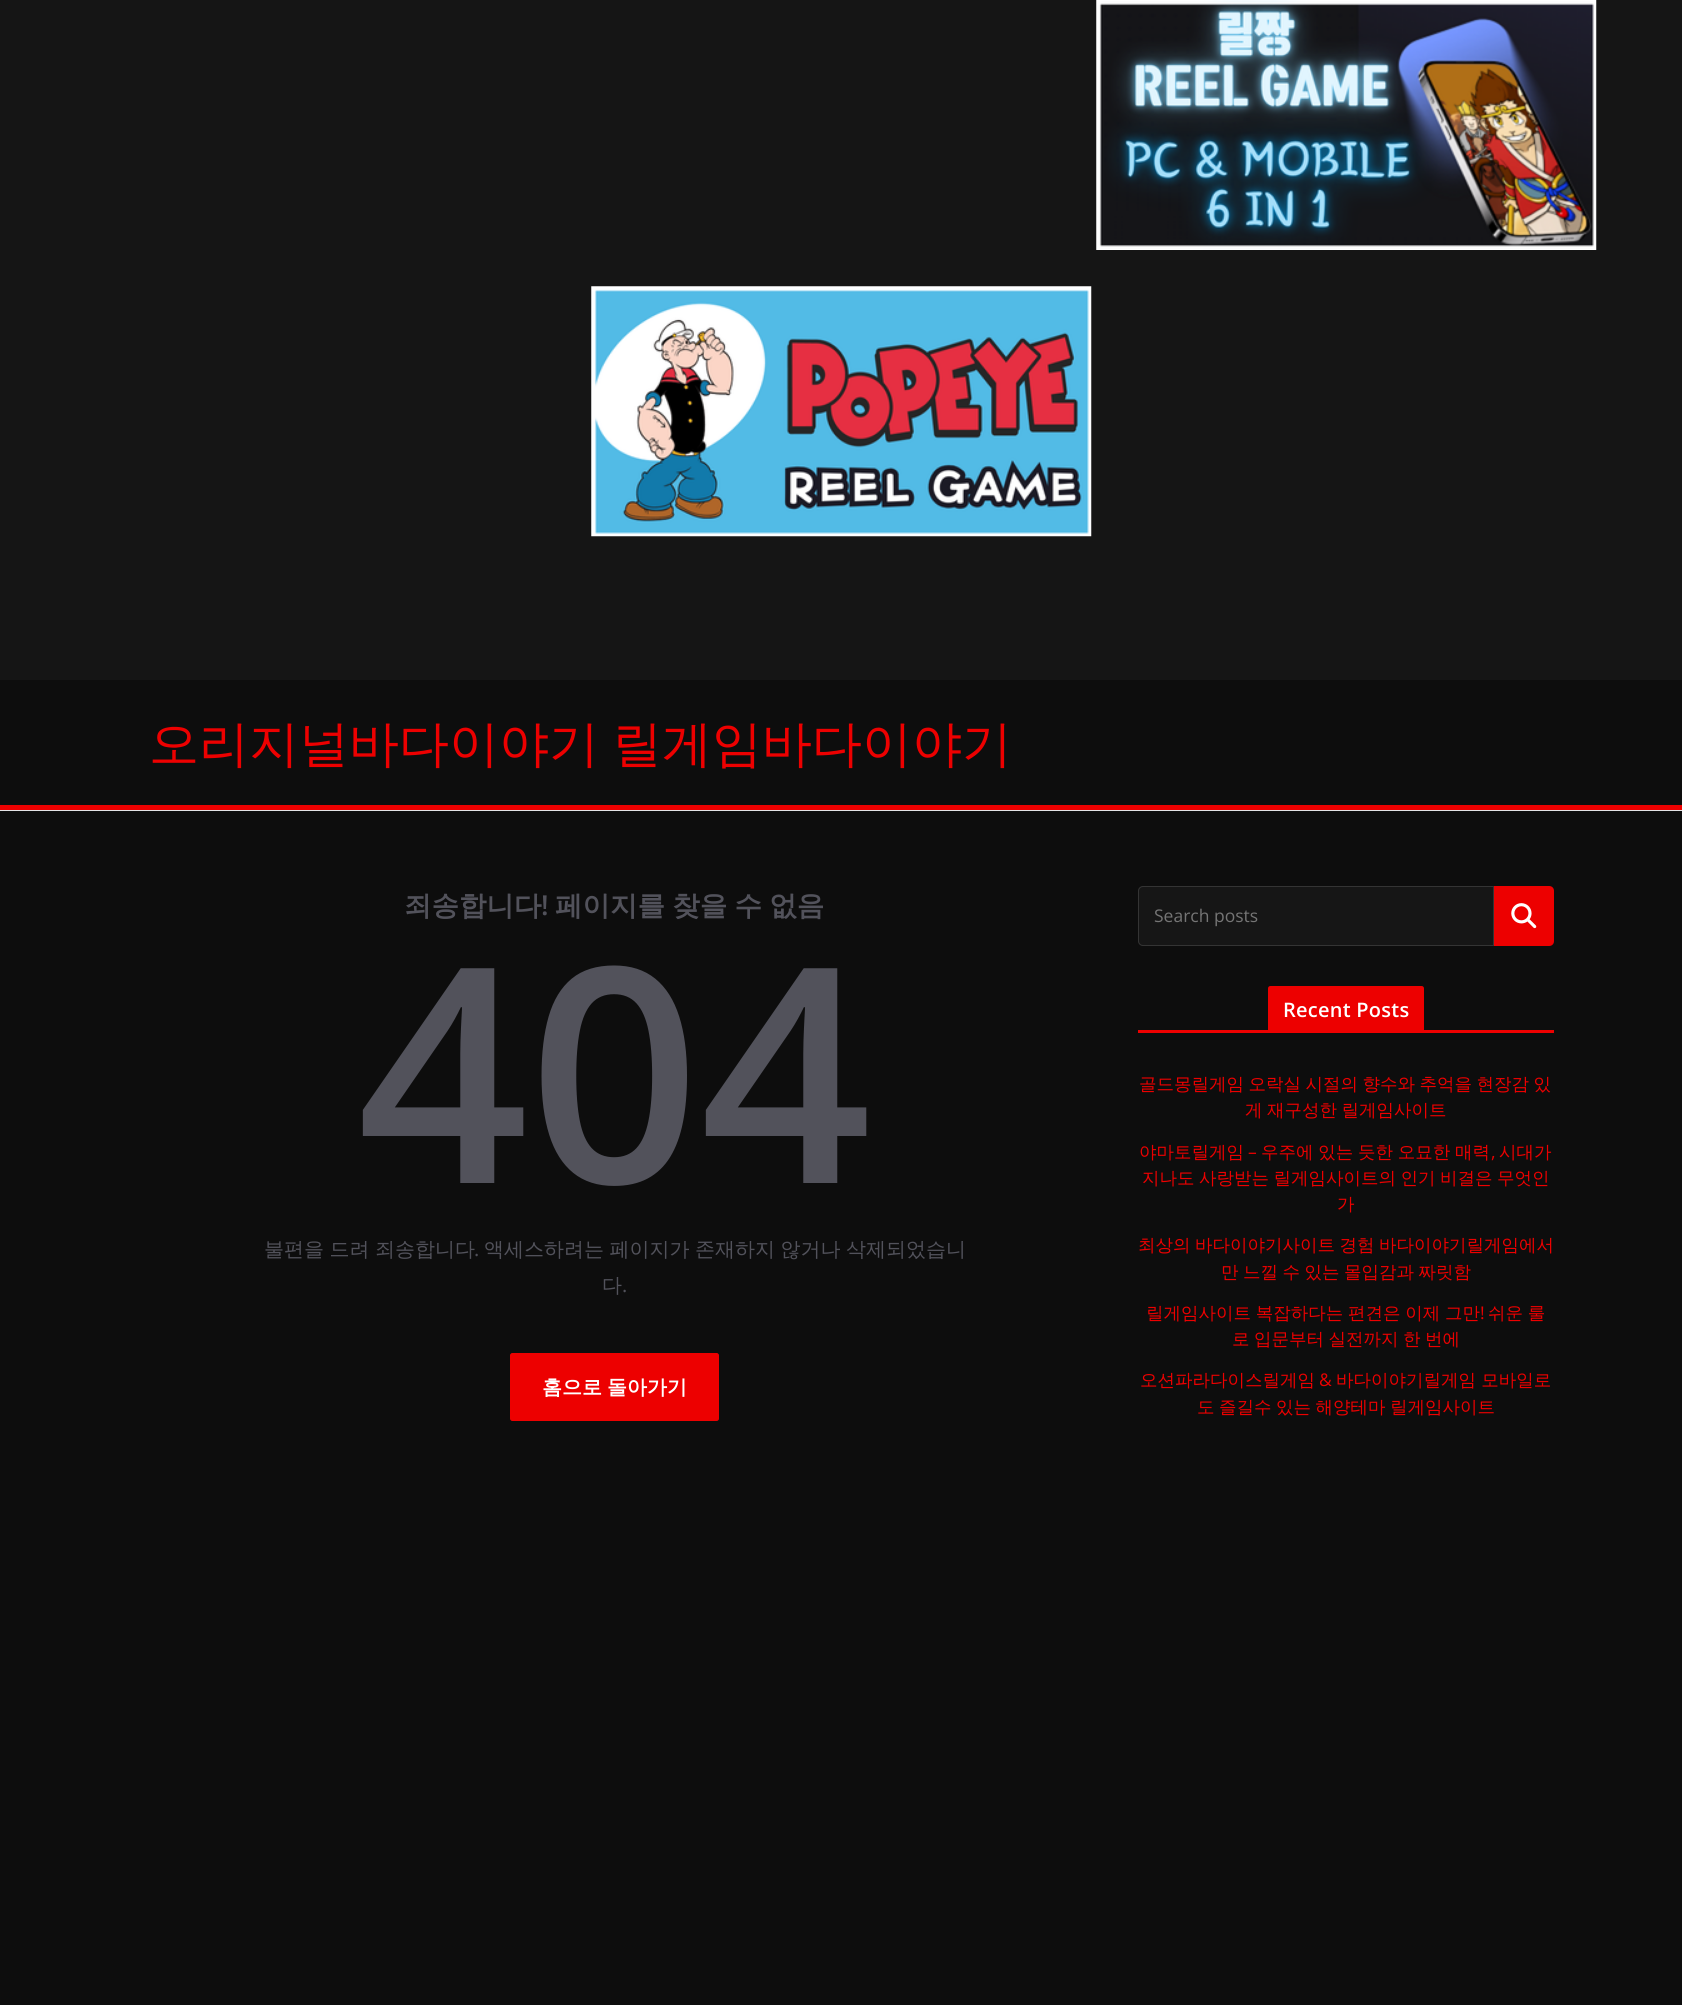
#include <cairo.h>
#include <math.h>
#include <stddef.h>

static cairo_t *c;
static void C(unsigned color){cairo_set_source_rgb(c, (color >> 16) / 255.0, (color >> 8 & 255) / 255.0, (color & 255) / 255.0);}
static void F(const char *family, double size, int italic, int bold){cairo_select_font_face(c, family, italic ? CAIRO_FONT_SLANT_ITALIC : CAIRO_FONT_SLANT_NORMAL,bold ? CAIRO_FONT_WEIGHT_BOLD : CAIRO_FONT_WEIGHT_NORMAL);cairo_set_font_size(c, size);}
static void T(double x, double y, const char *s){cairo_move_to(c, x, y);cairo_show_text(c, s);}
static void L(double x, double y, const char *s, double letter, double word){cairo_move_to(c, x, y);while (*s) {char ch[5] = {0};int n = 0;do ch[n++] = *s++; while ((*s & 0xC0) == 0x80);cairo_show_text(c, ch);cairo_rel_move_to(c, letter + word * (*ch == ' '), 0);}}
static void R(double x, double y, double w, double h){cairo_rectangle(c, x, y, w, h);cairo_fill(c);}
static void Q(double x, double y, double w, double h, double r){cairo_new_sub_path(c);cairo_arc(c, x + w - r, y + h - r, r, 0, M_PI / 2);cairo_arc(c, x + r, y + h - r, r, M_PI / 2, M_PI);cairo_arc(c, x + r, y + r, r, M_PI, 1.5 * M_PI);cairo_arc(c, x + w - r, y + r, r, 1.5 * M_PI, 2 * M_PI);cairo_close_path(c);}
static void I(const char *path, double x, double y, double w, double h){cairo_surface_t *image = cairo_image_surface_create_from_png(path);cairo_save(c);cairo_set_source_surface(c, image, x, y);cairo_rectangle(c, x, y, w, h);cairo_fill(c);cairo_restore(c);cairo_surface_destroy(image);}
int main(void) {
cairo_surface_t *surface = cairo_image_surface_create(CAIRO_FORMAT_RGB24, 1682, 2005);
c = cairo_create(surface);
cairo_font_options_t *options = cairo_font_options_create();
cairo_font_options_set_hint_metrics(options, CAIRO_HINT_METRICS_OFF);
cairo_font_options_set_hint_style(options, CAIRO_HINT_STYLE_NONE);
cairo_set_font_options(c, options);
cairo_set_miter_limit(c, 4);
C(0x151515);
cairo_paint(c);
I("1.png",1096,0,501,250);
I("2.png",591,286,501,251);
C(0x0d0d0d);
R(0,680,1682,1325);
C(0xe4e4e7);
R(0,810,1682,1);
F("WenQuanYi Zen Hei Medium",50,0,0);
C(0xed0000);
L(149,761,"오리지널바다이야기 릴게임바다이야기",0,-2);
R(0,805,1682,5);
F("WenQuanYi Zen Hei",27.5,0,1);
C(0x52525b);
T(404,915,"죄송합니다");
F("Open Sans SemiBold",27.5,0,0);
T(541,915,"!");
F("WenQuanYi Zen Hei",27.5,0,1);
L(555,915,"페이지를 찾을 수 없음",0,-1);
F("Open Sans SemiBold",300,0,0);
T(357,1183,"404");
F("WenQuanYi Zen Hei Medium",20,0,0);
L(264,1256,"불편을 드려 죄송합니다",0,-.5);
F("Open Sans",20,0,0);
T(474,1256,".");
F("WenQuanYi Zen Hei Medium",20,0,0);
L(484,1256,"액세스하려는 페이지가 존재하지 않거나 삭제되었습니",0,-.5);
T(602,1292,"다");
F("Open Sans",20,0,0);
T(622,1292,".");
C(0xed0000);
Q(510.5,1353.5,208,67,2);
cairo_fill_preserve(c);
cairo_set_line_width(c,1);
cairo_stroke(c);
F("WenQuanYi Zen Hei",20,0,1);
C(0xffffff);
L(542,1394,"홈으로 돌아가기",0,-1);
C(0x161616);
cairo_new_path(c);
cairo_move_to(c,1143,886.5);
cairo_line_to(c,1493.5,886.5);
cairo_line_to(c,1493.5,945.5);
cairo_line_to(c,1143,945.5);
cairo_curve_to(c,1140.5,945.5,1138.5,943.5,1138.5,941);
cairo_line_to(c,1138.5,891);
cairo_curve_to(c,1138.5,888.5,1140.5,886.5,1143,886.5);
cairo_close_path(c);
cairo_fill_preserve(c);
C(0x343434);
cairo_stroke(c);
F("Open Sans",17.5,0,0);
C(0x757575);
T(1154,922,"Search posts");
C(0xed0000);
cairo_new_path(c);
cairo_move_to(c,1494,886);
cairo_line_to(c,1549,886);
cairo_curve_to(c,1552,886,1554,888,1554,891);
cairo_line_to(c,1554,941);
cairo_curve_to(c,1554,944,1552,946,1549,946);
cairo_line_to(c,1494,946);
cairo_close_path(c);
cairo_fill(c);
I("3.png",1511,903,26,26);
R(1138,1030,416,3);
cairo_new_path(c);
cairo_move_to(c,1270.5,986);
cairo_line_to(c,1421.5,986);
cairo_curve_to(c,1423,986,1424,987,1424,988.5);
cairo_line_to(c,1424,1030);
cairo_line_to(c,1268,1030);
cairo_line_to(c,1268,988.5);
cairo_curve_to(c,1268,987,1269,986,1270.5,986);
cairo_close_path(c);
cairo_fill(c);
F("Open Sans SemiBold",20,0,0);
C(0xffffff);
L(1283,1017,"Recent Posts",.25,0);
F("WenQuanYi Zen Hei Medium",17.5,0,0);
C(0xed0000);
L(1139,1090,"골드몽릴게임 오락실 시절의 향수와 추억을 현장감 있",0,-.75);
L(1245,1116,"게 재구성한 릴게임사이트",0,-.75);
T(1139,1158,"야마토릴게임");
F("Open Sans",17.5,0,0);
T(1248,1158,"–");
F("WenQuanYi Zen Hei Medium",17.5,0,0);
L(1261,1158,"우주에 있는 듯한 오묘한 매력",0,-.5);
T(1499,1158,"시대가");
F("Open Sans",17.5,0,0);
T(1491,1158,",");
F("WenQuanYi Zen Hei Medium",17.5,0,0);
L(1142,1184,"지나도 사랑받는 릴게임사이트의 인기 비결은 무엇인",0,-.75);
T(1337,1210,"가");
L(1138,1251,"최상의 바다이야기사이트 경험 바다이야기릴게임에서",0,-.75);
L(1221,1278,"만 느낄 수 있는 몰입감과 짜릿함",0,-.75);
L(1146,1319,"릴게임사이트 복잡하다는 편견은 이제 그만",0,-.5);
F("Open Sans",17.5,0,0);
T(1480,1319,"!");
F("WenQuanYi Zen Hei Medium",17.5,0,0);
L(1488,1319,"쉬운 룰",0,-.5);
L(1232,1345,"로 입문부터 실전까지 한 번에",0,-.75);
T(1140,1386,"오션파라다이스릴게임");
F("Open Sans",17.5,0,0);
T(1319,1386,"&");
F("WenQuanYi Zen Hei Medium",17.5,0,0);
T(1336,1386,"바다이야기릴게임 모바일로");
L(1197,1413,"도 즐길수 있는 해양테마 릴게임사이트",0,-.75);
cairo_surface_write_to_png(surface, "o.png");
cairo_font_options_destroy(options);
cairo_destroy(c);
cairo_surface_destroy(surface);
return 0;
}
